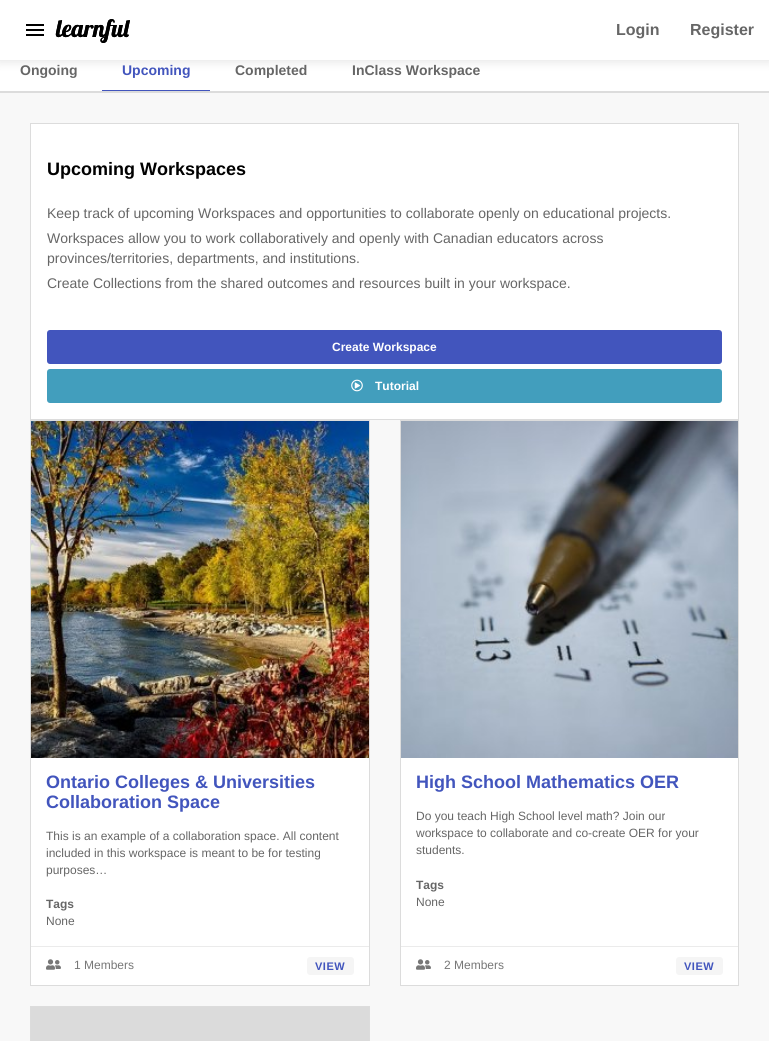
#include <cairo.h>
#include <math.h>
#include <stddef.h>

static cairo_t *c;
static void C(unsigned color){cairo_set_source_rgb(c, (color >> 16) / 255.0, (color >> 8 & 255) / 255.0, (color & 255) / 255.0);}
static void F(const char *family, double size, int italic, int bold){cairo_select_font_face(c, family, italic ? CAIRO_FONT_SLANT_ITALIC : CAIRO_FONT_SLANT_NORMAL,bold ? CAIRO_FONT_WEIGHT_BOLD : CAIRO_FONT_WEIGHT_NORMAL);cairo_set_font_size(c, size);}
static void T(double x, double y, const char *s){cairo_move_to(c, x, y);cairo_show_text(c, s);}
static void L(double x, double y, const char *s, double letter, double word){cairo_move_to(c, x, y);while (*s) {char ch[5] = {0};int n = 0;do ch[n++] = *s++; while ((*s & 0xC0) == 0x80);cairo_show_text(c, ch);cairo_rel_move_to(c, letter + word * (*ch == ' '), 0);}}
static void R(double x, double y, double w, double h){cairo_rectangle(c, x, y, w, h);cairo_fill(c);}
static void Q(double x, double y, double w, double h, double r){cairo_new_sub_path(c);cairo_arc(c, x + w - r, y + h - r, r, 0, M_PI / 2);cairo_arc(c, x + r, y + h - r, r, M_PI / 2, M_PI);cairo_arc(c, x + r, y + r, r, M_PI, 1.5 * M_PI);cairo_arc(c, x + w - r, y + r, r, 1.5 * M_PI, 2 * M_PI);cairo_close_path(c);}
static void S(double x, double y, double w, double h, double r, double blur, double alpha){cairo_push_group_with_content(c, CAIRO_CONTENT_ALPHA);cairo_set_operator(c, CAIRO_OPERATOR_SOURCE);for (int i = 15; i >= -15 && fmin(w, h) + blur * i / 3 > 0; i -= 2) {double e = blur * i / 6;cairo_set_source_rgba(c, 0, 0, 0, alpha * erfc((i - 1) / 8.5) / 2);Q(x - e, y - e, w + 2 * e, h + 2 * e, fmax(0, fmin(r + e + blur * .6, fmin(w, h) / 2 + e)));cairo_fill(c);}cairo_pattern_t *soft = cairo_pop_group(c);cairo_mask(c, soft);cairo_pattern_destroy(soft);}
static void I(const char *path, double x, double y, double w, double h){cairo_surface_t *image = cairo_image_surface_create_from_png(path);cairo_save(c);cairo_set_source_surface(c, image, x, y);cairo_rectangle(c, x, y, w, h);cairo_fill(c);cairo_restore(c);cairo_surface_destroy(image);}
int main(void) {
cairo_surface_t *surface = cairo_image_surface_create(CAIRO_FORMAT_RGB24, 769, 1041);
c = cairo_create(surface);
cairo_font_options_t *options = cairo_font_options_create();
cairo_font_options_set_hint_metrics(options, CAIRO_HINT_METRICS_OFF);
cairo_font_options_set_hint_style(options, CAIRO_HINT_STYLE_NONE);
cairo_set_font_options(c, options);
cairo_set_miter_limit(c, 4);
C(0xf8f8f8);
cairo_paint(c);
C(0xffffff);
R(0,60,769,31);
C(0x000000);
S(-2,-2,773,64,0,5,.1);
C(0xffffff);
R(0,0,769,60);
I("1.png",26,24,18,12);
I("2.png",55,19,75,24);
F("Liberation Sans",16,0,1);
C(0x666666);
T(616,35,"Login");
T(690,35,"Register");
C(0xdcdcdc);
R(0,91,769,2);
F("Liberation Sans",14,0,1);
C(0x666666);
T(20,75,"Ongoing");
C(0x4255bd);
R(102,90,108,1);
T(122,75,"Upcoming");
C(0x666666);
T(235,75,"Completed");
T(352,75,"InClass Workspace");
C(0xffffff);
cairo_rectangle(c,30.5,123.5,708,296);
cairo_fill_preserve(c);
C(0xdcdcdc);
cairo_set_line_width(c,1);
cairo_stroke(c);
F("Liberation Sans",18,0,1);
C(0x000000);
T(47,175,"Upcoming Workspaces");
F("Liberation Sans",14,0,0);
C(0x666666);
T(47,218,"Keep track of upcoming Workspaces and opportunities to collaborate openly on educational projects.");
T(47,243,"Workspaces allow you to work collaboratively and openly with Canadian educators across");
T(47,263,"provinces/territories, departments, and institutions.");
T(47,288,"Create Collections from the shared outcomes and resources built in your workspace.");
C(0x4255bd);
Q(47,330,675,34,3);
cairo_fill(c);
F("Liberation Sans",12,0,1);
C(0xffffff);
T(332,351,"Create Workspace");
C(0x429ebd);
Q(47,369,675,34,3);
cairo_fill(c);
I("3.png",351,379,12,13);
C(0xffffff);
T(375,390,"Tutorial");
R(31,758,338,227);
cairo_rectangle(c,30.5,420.5,339,565);
C(0xdcdcdc);
cairo_stroke(c);
I("4.png",31,421,338,337);
F("Liberation Sans",18,0,1);
C(0x4255bd);
T(46,788,"Ontario Colleges & Universities");
T(46,808,"Collaboration Space");
F("Liberation Sans",12,0,0);
C(0x666666);
T(46,840,"This is an example of a collaboration space. All content");
T(46,857,"included in this workspace is meant to be for testing");
T(46,874,"purposes…");
F("Liberation Sans",12,0,1);
T(46,908,"Tags");
F("Liberation Sans",12,0,0);
T(46,925,"None");
C(0xebebeb);
R(31,946,338,1);
I("5.png",46,959,15,11);
C(0x777777);
T(74,969,"1 Members");
C(0xf5f5f5);
Q(307,957,47,18,3);
cairo_fill(c);
F("Liberation Sans",11,0,1);
C(0x4255bd);
L(315,970,"VIEW",.5,0);
C(0xffffff);
R(401,758,337,227);
cairo_rectangle(c,400.5,420.5,338,565);
C(0xdcdcdc);
cairo_stroke(c);
I("6.png",401,421,337,337);
F("Liberation Sans",18,0,1);
C(0x4255bd);
T(416,788,"High School Mathematics OER");
F("Liberation Sans",12,0,0);
C(0x666666);
T(416,820,"Do you teach High School level math? Join our");
T(416,837,"workspace to collaborate and co-create OER for your");
T(416,854,"students.");
F("Liberation Sans",12,0,1);
T(416,889,"Tags");
F("Liberation Sans",12,0,0);
T(416,906,"None");
C(0xebebeb);
R(401,946,337,1);
I("5.png",416,959,15,11);
C(0x777777);
T(444,969,"2 Members");
C(0xf5f5f5);
Q(676,957,47,18,3);
cairo_fill(c);
F("Liberation Sans",11,0,1);
C(0x4255bd);
L(684,970,"VIEW",.5,0);
cairo_rectangle(c,30.5,1006.5,339,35);
C(0xdcdcdc);
cairo_stroke(c);
C(0xdbdbdb);
R(31,1007,338,34);
cairo_surface_write_to_png(surface, "o.png");
cairo_font_options_destroy(options);
cairo_destroy(c);
cairo_surface_destroy(surface);
return 0;
}
